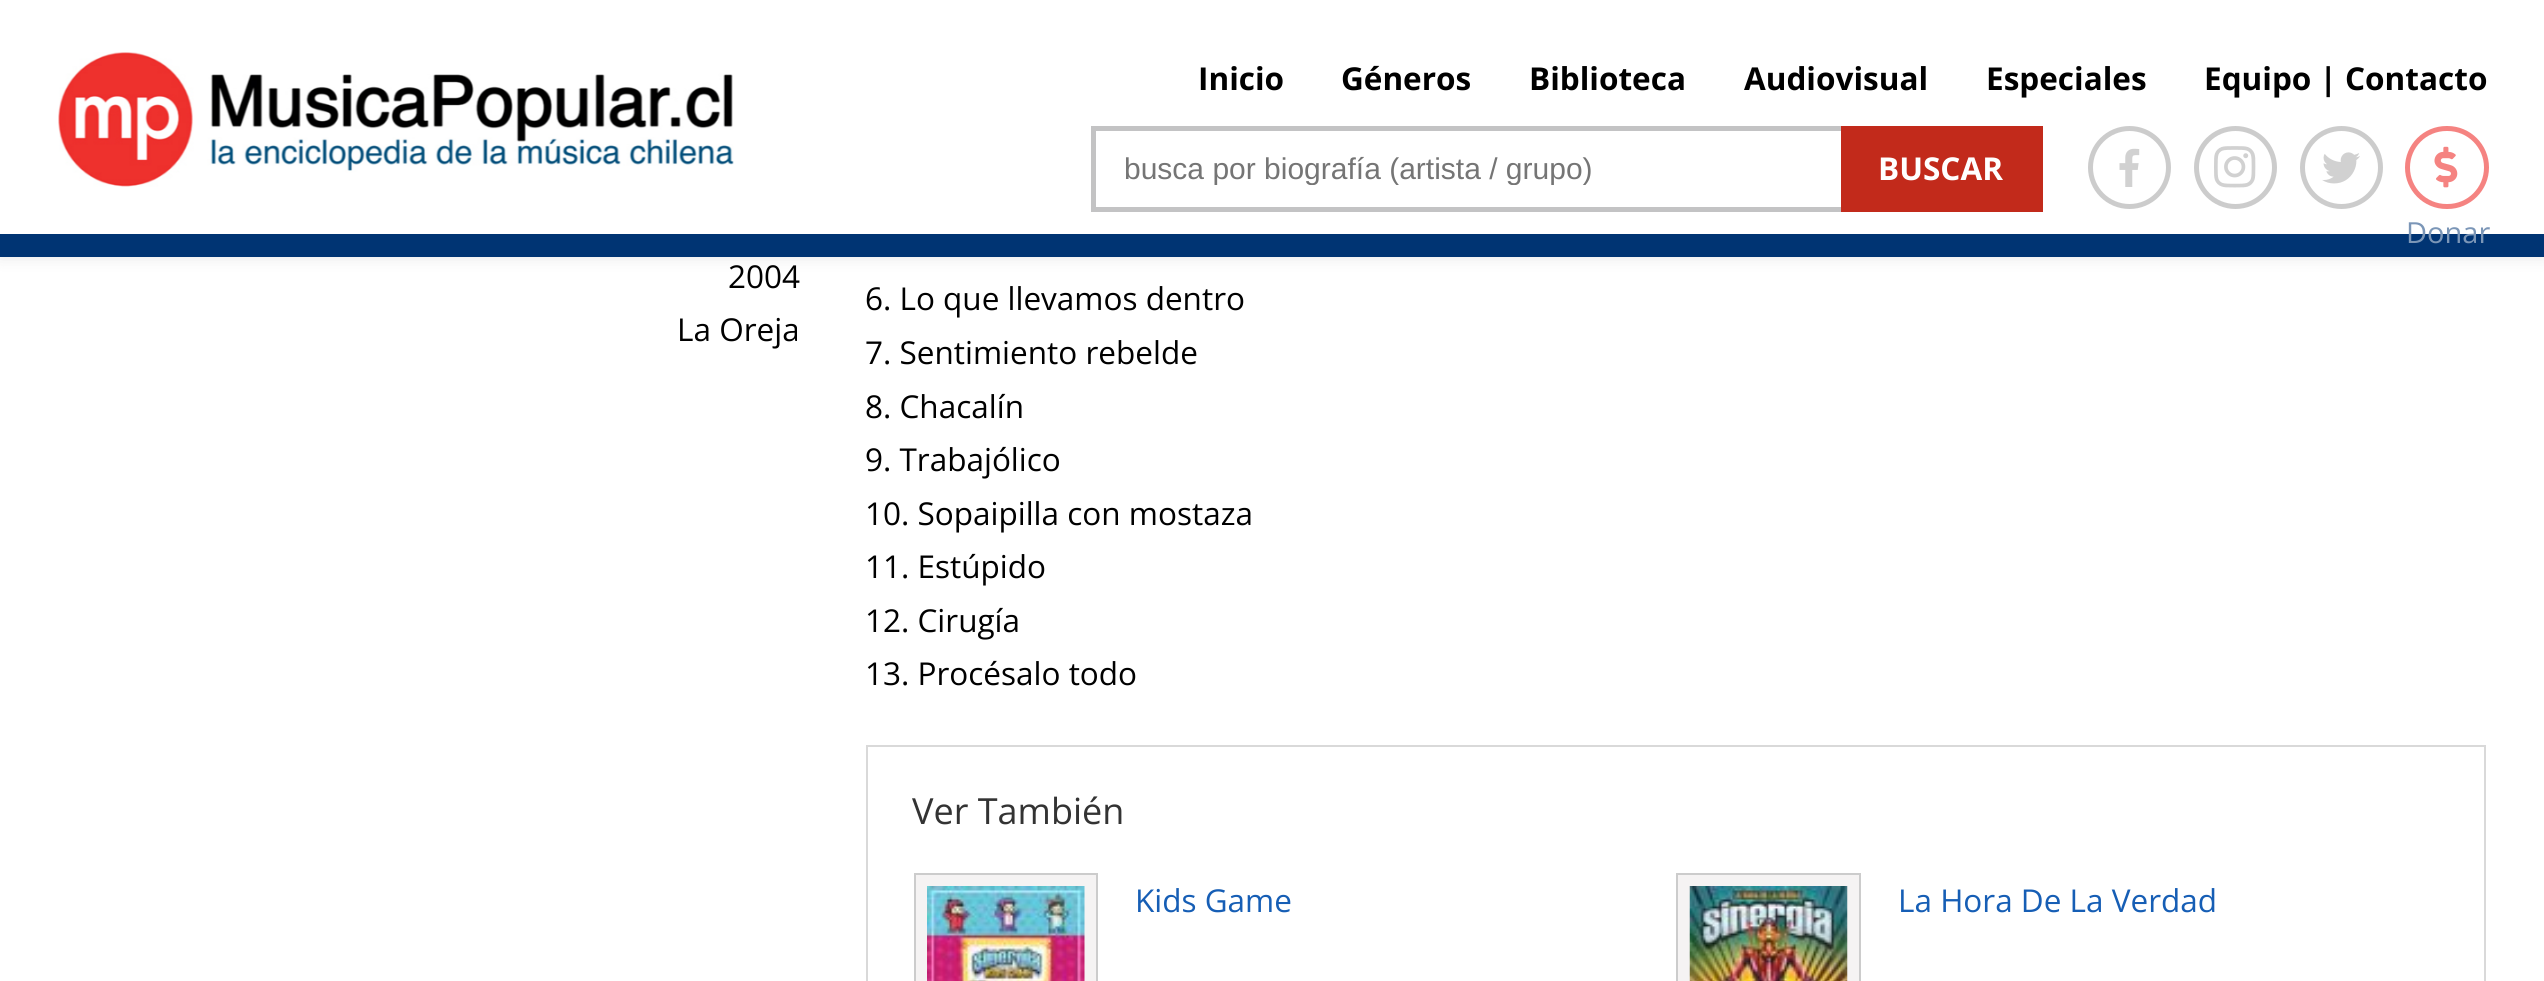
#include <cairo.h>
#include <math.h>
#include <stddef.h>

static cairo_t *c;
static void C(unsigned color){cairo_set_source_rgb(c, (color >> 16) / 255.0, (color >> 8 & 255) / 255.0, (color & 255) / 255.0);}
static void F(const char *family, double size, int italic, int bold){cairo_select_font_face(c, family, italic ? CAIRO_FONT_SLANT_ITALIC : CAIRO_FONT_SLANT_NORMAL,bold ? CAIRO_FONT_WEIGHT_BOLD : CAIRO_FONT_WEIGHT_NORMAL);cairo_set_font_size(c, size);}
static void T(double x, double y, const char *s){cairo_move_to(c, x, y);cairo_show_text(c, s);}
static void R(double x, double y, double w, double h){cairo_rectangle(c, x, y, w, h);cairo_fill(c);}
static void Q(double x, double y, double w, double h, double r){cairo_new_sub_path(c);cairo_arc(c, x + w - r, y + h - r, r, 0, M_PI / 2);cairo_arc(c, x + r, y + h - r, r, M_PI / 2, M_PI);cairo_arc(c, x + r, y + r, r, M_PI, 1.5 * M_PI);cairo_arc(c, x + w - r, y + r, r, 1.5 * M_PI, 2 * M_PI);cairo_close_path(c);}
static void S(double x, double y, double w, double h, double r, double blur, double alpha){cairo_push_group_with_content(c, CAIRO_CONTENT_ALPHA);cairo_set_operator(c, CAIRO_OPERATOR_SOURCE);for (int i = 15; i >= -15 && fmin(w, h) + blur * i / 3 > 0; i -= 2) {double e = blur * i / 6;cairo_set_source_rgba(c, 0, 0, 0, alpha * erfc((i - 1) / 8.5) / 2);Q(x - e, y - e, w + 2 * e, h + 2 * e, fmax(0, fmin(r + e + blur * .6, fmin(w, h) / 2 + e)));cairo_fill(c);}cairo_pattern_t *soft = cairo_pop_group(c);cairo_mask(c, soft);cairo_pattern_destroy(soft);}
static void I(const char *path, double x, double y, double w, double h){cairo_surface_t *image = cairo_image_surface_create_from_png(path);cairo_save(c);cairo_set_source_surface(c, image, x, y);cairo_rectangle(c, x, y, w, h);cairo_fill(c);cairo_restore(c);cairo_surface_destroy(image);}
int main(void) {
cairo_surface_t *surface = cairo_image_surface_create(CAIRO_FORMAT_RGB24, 2544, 981);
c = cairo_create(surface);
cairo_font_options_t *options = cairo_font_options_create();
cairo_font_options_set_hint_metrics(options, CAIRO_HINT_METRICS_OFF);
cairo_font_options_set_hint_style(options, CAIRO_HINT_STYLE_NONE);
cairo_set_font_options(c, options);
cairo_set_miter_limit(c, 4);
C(0xffffff);
cairo_paint(c);
C(0x000000);
S(0,0,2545,257,0,8,.1);
C(0xffffff);
R(0,0,2544,234);
C(0x003473);
R(0,234,2544,23);
I("1.png",58,52,676,135);
F("Open Sans",31.5,0,1);
C(0x000000);
T(1198,90,"Inicio");
T(1341,90,"Géneros");
T(1529,90,"Biblioteca");
T(1744,90,"Audiovisual");
T(1986,90,"Especiales");
T(2204,90,"Equipo | Contacto");
C(0xc3c3c4);
R(1091,126,750,86);
C(0xffffff);
R(1096,131,745,76);
cairo_save(c);
cairo_rectangle(c,1125,151,686,34);
cairo_clip(c);
F("Liberation Sans",30,0,0);
C(0x757575);
T(1124,179,"busca por biografía (artista / grupo)");
cairo_restore(c);
C(0xc22a1b);
R(1841,126,202,86);
C(0xffffff);
T(1878,180,"BUSCAR");
cairo_new_path(c);
cairo_arc(c,2129.5,167.5,39,0,2 * M_PI);
C(0xcccccc);
cairo_set_line_width(c,5);
cairo_stroke(c);
I("2.png",2119,148,21,39);
cairo_arc(c,2235.5,167.5,39,0,2 * M_PI);
cairo_stroke(c);
I("3.png",2214,146,42,42);
cairo_arc(c,2341.5,167.5,39,0,2 * M_PI);
cairo_stroke(c);
I("4.png",2322,152,38,32);
Q(2407.5,128.5,79,78,39);
C(0xf58381);
cairo_stroke(c);
I("5.png",2434,146,24,42);
F("Open Sans",29,0,0);
C(0x7b96b7);
T(2406,243,"Donar");
F("Open Sans",31.5,0,0);
C(0x000000);
T(728,288,"2004");
T(677,341,"La Oreja");
T(865,310,"6. Lo que llevamos dentro");
T(865,364,"7. Sentimiento rebelde");
T(865,418,"8. Chacalín");
T(865,471,"9. Trabajólico");
T(865,525,"10. Sopaipilla con mostaza");
T(865,578,"11. Estúpido");
T(865,632,"12. Cirugía");
T(865,685,"13. Procésalo todo");
cairo_rectangle(c,867,746,1618,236);
C(0xd9d9d9);
cairo_set_line_width(c,2);
cairo_stroke(c);
F("Open Sans",36,0,0);
C(0x333333);
T(912,824,"Ver También");
C(0xf5f3f3);
cairo_rectangle(c,915,874,182,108);
cairo_fill_preserve(c);
C(0xcccccc);
cairo_stroke(c);
I("6.png",927,886,158,95);
F("Open Sans",31.5,0,0);
C(0x165eb5);
T(1135,912,"Kids Game");
C(0xf5f3f3);
cairo_rectangle(c,1677,874,183,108);
cairo_fill_preserve(c);
C(0xcccccc);
cairo_stroke(c);
I("7.png",1689,886,159,95);
C(0x165eb5);
T(1898,912,"La Hora De La Verdad");
cairo_surface_write_to_png(surface, "o.png");
cairo_font_options_destroy(options);
cairo_destroy(c);
cairo_surface_destroy(surface);
return 0;
}
